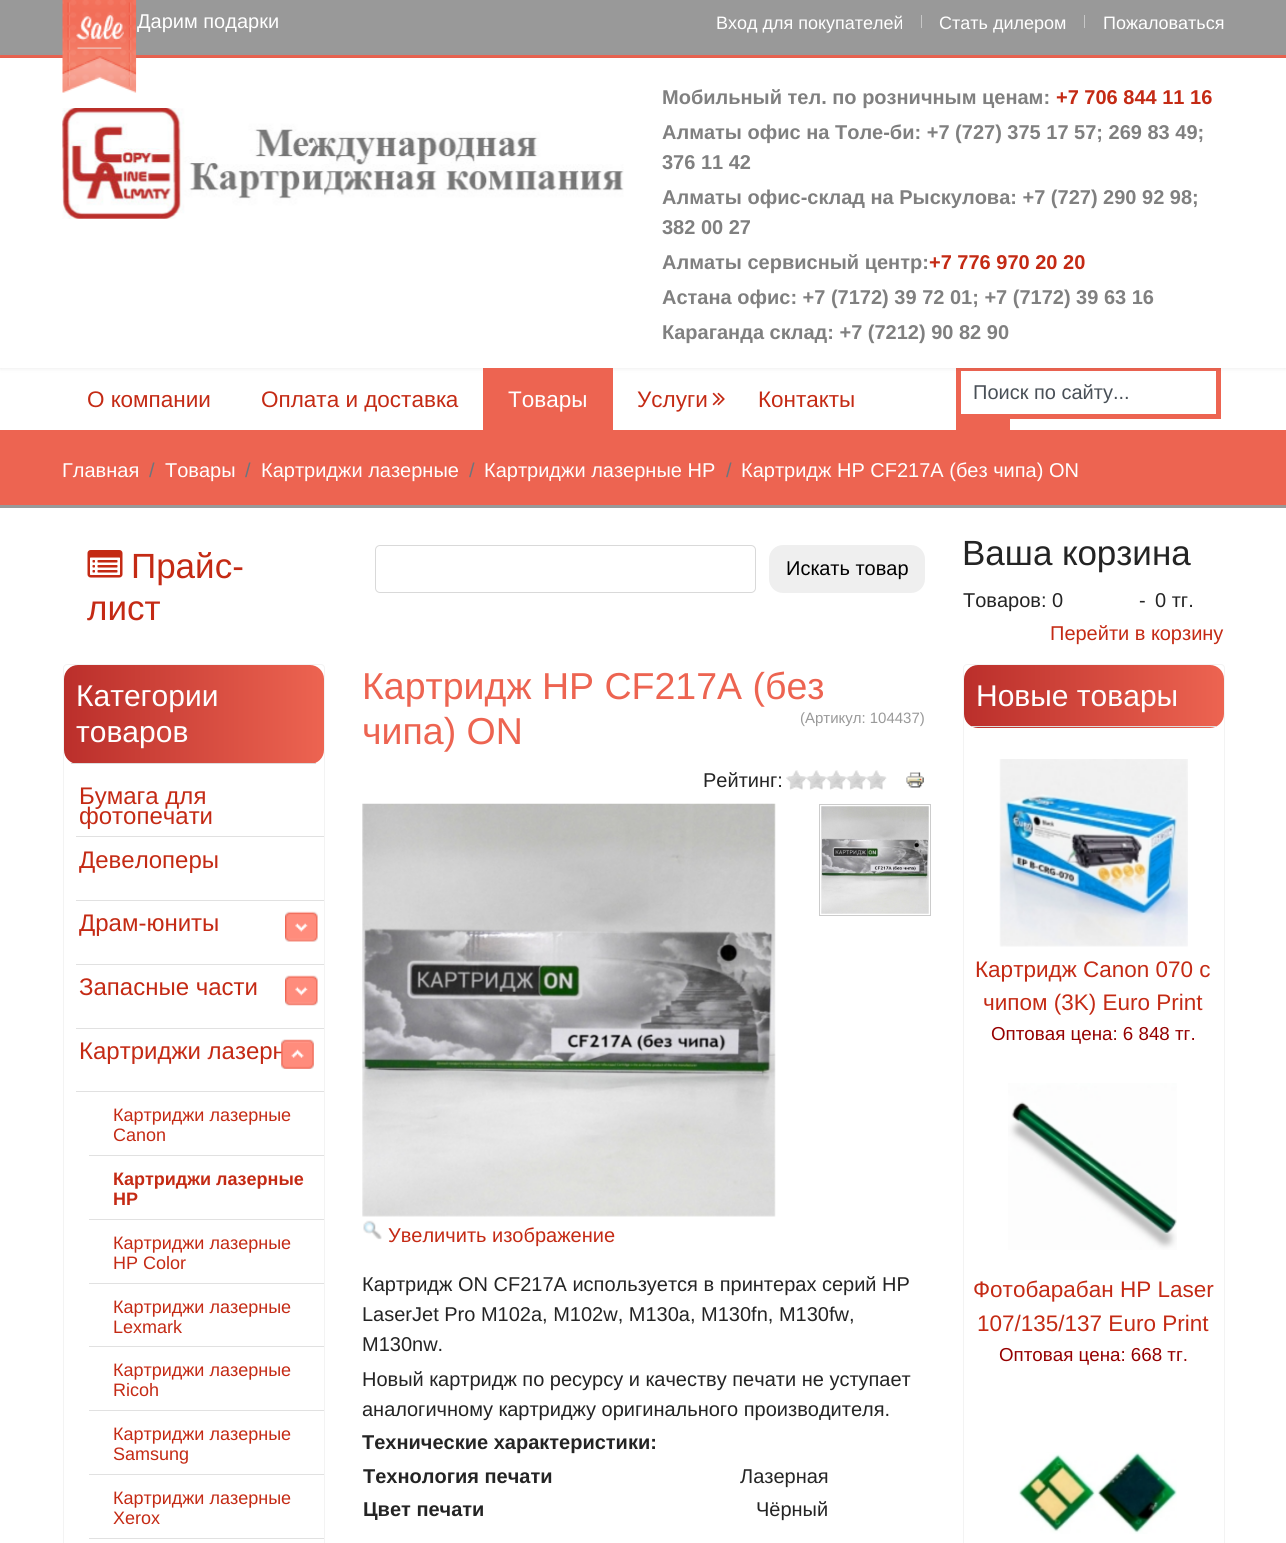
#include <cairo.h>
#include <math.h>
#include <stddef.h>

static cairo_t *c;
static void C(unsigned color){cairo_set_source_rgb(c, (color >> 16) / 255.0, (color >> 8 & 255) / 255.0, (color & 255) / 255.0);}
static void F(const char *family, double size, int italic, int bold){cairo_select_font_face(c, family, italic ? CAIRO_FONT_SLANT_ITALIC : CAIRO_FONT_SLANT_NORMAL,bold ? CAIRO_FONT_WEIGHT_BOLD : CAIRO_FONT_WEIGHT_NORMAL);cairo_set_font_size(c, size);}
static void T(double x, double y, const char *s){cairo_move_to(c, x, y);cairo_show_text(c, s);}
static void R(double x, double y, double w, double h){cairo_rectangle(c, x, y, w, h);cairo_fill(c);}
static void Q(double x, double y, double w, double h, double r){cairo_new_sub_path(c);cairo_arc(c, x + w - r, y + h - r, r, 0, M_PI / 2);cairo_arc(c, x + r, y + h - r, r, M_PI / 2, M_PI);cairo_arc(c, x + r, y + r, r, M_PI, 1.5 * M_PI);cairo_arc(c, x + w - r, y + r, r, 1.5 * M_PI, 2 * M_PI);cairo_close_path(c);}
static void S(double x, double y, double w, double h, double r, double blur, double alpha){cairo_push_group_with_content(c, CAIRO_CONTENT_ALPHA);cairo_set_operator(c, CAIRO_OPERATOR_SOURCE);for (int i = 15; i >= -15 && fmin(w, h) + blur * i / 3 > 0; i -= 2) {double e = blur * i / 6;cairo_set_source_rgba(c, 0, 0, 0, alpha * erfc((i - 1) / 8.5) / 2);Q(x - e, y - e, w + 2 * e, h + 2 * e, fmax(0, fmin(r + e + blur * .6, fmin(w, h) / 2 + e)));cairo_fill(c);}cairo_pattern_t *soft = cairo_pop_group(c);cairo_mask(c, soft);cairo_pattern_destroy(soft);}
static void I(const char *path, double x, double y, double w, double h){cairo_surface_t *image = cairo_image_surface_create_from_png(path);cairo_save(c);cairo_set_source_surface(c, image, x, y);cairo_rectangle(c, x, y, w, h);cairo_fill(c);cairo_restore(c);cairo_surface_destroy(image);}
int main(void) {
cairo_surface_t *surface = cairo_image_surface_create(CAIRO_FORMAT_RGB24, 1286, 1543);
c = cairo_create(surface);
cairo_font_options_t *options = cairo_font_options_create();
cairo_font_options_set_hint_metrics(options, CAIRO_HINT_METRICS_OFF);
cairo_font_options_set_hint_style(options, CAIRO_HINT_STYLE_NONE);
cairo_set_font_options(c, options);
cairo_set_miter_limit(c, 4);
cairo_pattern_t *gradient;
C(0xffffff);
cairo_paint(c);
C(0x999999);
R(0,0,1286,55);
C(0xed6451);
R(0,55,1286,3);
F("Liberation Sans",20,0,0);
C(0xffffff);
T(137,28,"Дарим подарки");
cairo_rectangle(c,958.5,368.5,260,48);
C(0xed6451);
cairo_set_line_width(c,5);
cairo_stroke(c);
C(0x000000);
S(0,58,1286,310,0,2.5,.1);
C(0xffffff);
R(0,58,1286,310);
I("1.png",62,0,75,93);
F("Liberation Sans",18,0,0);
T(716,29,"Вход для покупателей");
C(0xc7c7c7);
R(921,15,1,13);
C(0xffffff);
T(939,29,"Стать дилером");
C(0xc7c7c7);
R(1084,15,1,13);
C(0xffffff);
T(1103,29,"Пожаловаться");
I("2.png",62,108,562,111);
F("Liberation Sans",20,0,1);
C(0x808080);
T(662,104,"Мобильный тел. по розничным ценам:");
C(0xc42a14);
T(1056,104,"+7 706 844 11 16");
C(0x808080);
T(662,139,"Алматы офис на Толе-би: +7 (727) 375 17 57; 269 83 49;");
T(662,169,"376 11 42");
T(662,204,"Алматы офис-склад на Рыскулова: +7 (727) 290 92 98;");
T(662,234,"382 00 27");
T(662,269,"Алматы сервисный центр:");
C(0xc42a14);
T(929,269,"+7 776 970 20 20");
C(0x808080);
T(662,304,"Астана офис: +7 (7172) 39 72 01; +7 (7172) 39 63 16");
T(662,339,"Караганда склад: +7 (7212) 90 82 90");
F("Liberation Sans",22.5,0,0);
C(0xc42a14);
T(87,407,"О компании");
T(261,407,"Оплата и доставка");
C(0xed6451);
R(483,368,130,62);
C(0xffffff);
T(508,407,"Товары");
C(0xc42a14);
T(637,407,"Услуги");
I("3.png",712,392,13,14);
T(758,407,"Контакты");
F("Liberation Sans",20,0,0);
C(0x495057);
T(973,399,"Поиск по сайту...");
C(0xed6451);
R(956,419,54,11);
R(0,430,1286,75);
C(0x999999);
R(0,505,1286,3);
C(0xffffff);
T(62,477,"Главная");
C(0x6c757d);
T(149,477,"/");
C(0xffffff);
T(165,477,"Товары");
C(0x6c757d);
T(245,477,"/");
C(0xffffff);
T(261,477,"Картриджи лазерные");
C(0x6c757d);
T(469,477,"/");
C(0xffffff);
T(484,477,"Картриджи лазерные HP");
C(0x6c757d);
T(726,477,"/");
C(0xffffff);
T(741,477,"Картридж HP CF217A (без чипа) ON");
I("4.png",87,550,36,28);
F("Liberation Sans",35,0,0);
C(0xc42a14);
T(131,578,"Прайс-");
T(87,620,"лист");
Q(375.5,545.5,380,47,4.5);
C(0xd9d9d9);
cairo_set_line_width(c,1);
cairo_stroke(c);
C(0xefefef);
Q(769,545,156,48,14);
cairo_fill(c);
F("Liberation Sans",20,0,0);
C(0x000000);
T(786,575,"Искать товар");
F("Liberation Sans",35,0,0);
C(0x242424);
T(962,565,"Ваша корзина");
F("Liberation Sans",20,0,0);
T(963,607,"Товаров: 0");
T(1139,607,"-");
T(1155,607,"0 тг.");
C(0xc42a14);
T(1050,640,"Перейти в корзину");
Q(63.5,664.5,261,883,3.5);
C(0xf3f3f3);
cairo_stroke(c);
gradient = cairo_pattern_create_linear(64,714,324,714);
cairo_pattern_add_color_stop_rgba(gradient,0,0.733,0.184,0.169,1);
cairo_pattern_add_color_stop_rgba(gradient,1,0.929,0.392,0.318,1);
cairo_set_source(c,gradient);
cairo_pattern_destroy(gradient);
Q(64,665,260,99,14);
cairo_fill(c);
C(0xdddddd);
R(71,763,245,1);
F("Liberation Sans",30,0,0);
C(0xffffff);
T(76,706,"Категории");
T(76,742,"товаров");
C(0xe1e1e1);
R(76,836,248,1);
F("Liberation Sans",24,0,0);
C(0xc42a14);
T(79,804,"Бумага для");
T(79,824,"фотопечати");
C(0xe1e1e1);
R(76,900,248,1);
C(0xc42a14);
T(79,868,"Девелоперы");
C(0xe1e1e1);
R(76,964,248,1);
C(0xc42a14);
T(79,931,"Драм-юниты");
I("5.png",285,911,33,31);
C(0xe1e1e1);
R(76,1028,248,1);
C(0xc42a14);
T(79,995,"Запасные части");
I("6.png",285,975,33,31);
C(0xe1e1e1);
R(76,1091,248,1);
C(0xc42a14);
T(79,1059,"Картриджи лазерн");
I("7.png",281,1039,33,30);
C(0xe1e1e1);
R(89,1155,235,1);
F("Liberation Sans",18,0,0);
C(0xc42a14);
T(113,1121,"Картриджи лазерные");
T(113,1141,"Canon");
C(0xe1e1e1);
R(89,1219,235,1);
F("Liberation Sans",18,0,1);
C(0xc42a14);
T(113,1185,"Картриджи лазерные");
T(113,1205,"HP");
C(0xe1e1e1);
R(89,1283,235,1);
F("Liberation Sans",18,0,0);
C(0xc42a14);
T(113,1249,"Картриджи лазерные");
T(113,1269,"HP Color");
C(0xe1e1e1);
R(89,1346,235,1);
C(0xc42a14);
T(113,1313,"Картриджи лазерные");
T(113,1333,"Lexmark");
C(0xe1e1e1);
R(89,1410,235,1);
C(0xc42a14);
T(113,1376,"Картриджи лазерные");
T(113,1396,"Ricoh");
C(0xe1e1e1);
R(89,1474,235,1);
C(0xc42a14);
T(113,1440,"Картриджи лазерные");
T(113,1460,"Samsung");
C(0xe1e1e1);
R(89,1538,235,1);
C(0xc42a14);
T(113,1504,"Картриджи лазерные");
T(113,1524,"Xerox");
F("Liberation Sans",37.5,0,0);
C(0xed6451);
T(362,699,"Картридж HP CF217A (без");
T(362,744,"чипа) ON");
F("Liberation Sans",15,0,0);
C(0x999999);
T(800,723,"(Артикул: 104437)");
F("Liberation Sans",20,0,0);
C(0x242424);
T(703,787,"Рейтинг:");
I("8.png",786,770,101,20);
I("9.png",906,772,18,16);
cairo_rectangle(c,819.5,804.5,111,111);
C(0xcccccc);
cairo_stroke(c);
I("10.png",821,806,108,108);
I("11.png",362,803,414,414);
I("12.png",363,1220,19,20);
C(0xc42a14);
T(388,1242,"Увеличить изображение");
C(0x242424);
T(362,1291,"Картридж ON CF217A используется в принтерах серий HP");
T(362,1321,"LaserJet Pro M102a, M102w, M130a, M130fn, M130fw,");
T(362,1351,"M130nw.");
T(362,1386,"Новый картридж по ресурсу и качеству печати не уступает");
T(362,1416,"аналогичному картриджу оригинального производителя.");
F("Liberation Sans",20,0,1);
T(362,1449,"Технические характеристики:");
T(363,1483,"Технология печати");
F("Liberation Sans",20,0,0);
T(740,1483,"Лазерная");
F("Liberation Sans",20,0,1);
T(363,1516,"Цвет печати");
F("Liberation Sans",20,0,0);
T(756,1516,"Чёрный");
Q(963.5,664.5,261,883,3.5);
C(0xf3f3f3);
cairo_stroke(c);
gradient = cairo_pattern_create_linear(964,696,1224,696);
cairo_pattern_add_color_stop_rgba(gradient,0,0.733,0.184,0.169,1);
cairo_pattern_add_color_stop_rgba(gradient,1,0.929,0.392,0.318,1);
cairo_set_source(c,gradient);
cairo_pattern_destroy(gradient);
Q(964,665,260,63,14);
cairo_fill(c);
C(0xdddddd);
R(971,726,245,1);
F("Liberation Sans",30,0,0);
C(0xffffff);
T(976,706,"Новые товары");
I("13.png",999,759,189,188);
F("Liberation Sans",22.5,0,0);
C(0xc42a14);
T(975,977,"Картридж Canon 070 с");
T(983,1010,"чипом (3K) Euro Print");
F("Liberation Sans",18.75,0,0);
C(0x950000);
T(991,1040,"Оптовая цена: 6 848 тг.");
I("14.png",1008,1083,169,167);
F("Liberation Sans",22.5,0,0);
C(0xc42a14);
T(973,1297,"Фотобарабан HP Laser");
T(977,1331,"107/135/137 Euro Print");
F("Liberation Sans",18.75,0,0);
C(0x950000);
T(999,1361,"Оптовая цена: 668 тг.");
I("15.png",1018,1452,159,82);
cairo_surface_write_to_png(surface, "o.png");
cairo_font_options_destroy(options);
cairo_destroy(c);
cairo_surface_destroy(surface);
return 0;
}
